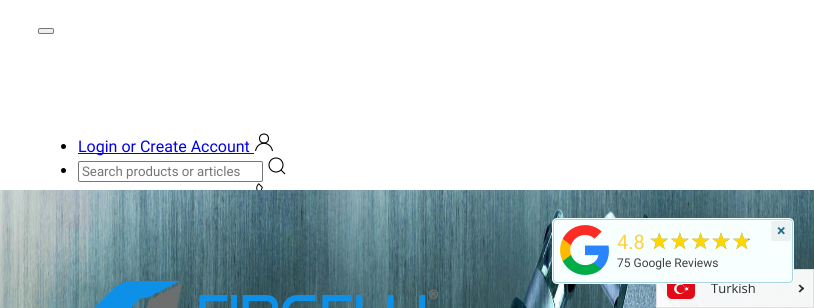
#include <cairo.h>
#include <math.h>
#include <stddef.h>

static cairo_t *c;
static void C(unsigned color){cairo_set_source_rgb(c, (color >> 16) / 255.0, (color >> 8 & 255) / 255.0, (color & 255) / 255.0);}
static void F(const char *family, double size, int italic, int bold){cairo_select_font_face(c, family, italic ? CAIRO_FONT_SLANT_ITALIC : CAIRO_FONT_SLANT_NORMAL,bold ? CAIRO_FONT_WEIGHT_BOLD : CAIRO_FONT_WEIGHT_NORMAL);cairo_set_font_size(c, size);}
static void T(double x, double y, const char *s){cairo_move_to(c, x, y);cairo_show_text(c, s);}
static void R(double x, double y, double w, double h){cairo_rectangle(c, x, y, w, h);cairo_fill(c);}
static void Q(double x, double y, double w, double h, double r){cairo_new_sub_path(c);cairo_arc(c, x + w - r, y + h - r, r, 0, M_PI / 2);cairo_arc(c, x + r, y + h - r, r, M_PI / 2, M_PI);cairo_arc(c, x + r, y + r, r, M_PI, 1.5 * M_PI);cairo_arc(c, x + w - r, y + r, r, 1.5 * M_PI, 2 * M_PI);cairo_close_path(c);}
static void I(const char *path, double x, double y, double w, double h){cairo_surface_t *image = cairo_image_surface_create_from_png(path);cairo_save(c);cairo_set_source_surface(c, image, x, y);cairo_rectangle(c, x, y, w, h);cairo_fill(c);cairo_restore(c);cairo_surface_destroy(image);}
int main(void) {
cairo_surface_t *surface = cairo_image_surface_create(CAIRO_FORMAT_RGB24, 814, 308);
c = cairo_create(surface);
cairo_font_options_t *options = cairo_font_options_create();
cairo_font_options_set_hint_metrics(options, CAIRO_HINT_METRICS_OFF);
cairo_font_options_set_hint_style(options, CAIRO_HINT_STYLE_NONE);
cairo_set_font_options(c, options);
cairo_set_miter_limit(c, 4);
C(0xffffff);
cairo_paint(c);
C(0xefefef);
Q(38.5,28.5,15,5,1.5);
cairo_fill_preserve(c);
C(0x767676);
cairo_set_line_width(c,1);
cairo_stroke(c);
C(0x000000);
cairo_arc(c,63.5,146.5,2.5,0,2 * M_PI);
cairo_fill(c);
C(0x0000ee);
R(78,153,176,1);
F("Roboto",16,0,0);
T(78,152,"Login or Create Account");
cairo_new_path(c);
cairo_arc(c,264,138.5,4.5,0,2 * M_PI);
C(0x000000);
cairo_set_line_width(c,1.1);
cairo_stroke(c);
cairo_new_path(c);
cairo_move_to(c,255.5,151);
cairo_curve_to(c,257.5,140.5,270.5,141,272.5,151);
cairo_stroke(c);
cairo_arc(c,63.5,170.5,2.5,0,2 * M_PI);
cairo_fill(c);
Q(78.5,161.5,184,20,1.5);
C(0x767676);
cairo_set_line_width(c,1);
cairo_stroke(c);
F("Roboto",13.25,0,0);
C(0x757575);
T(82,176,"Search products or articles");
cairo_new_path(c);
cairo_arc(c,276,165,7,0,2 * M_PI);
C(0x000000);
cairo_set_line_width(c,1.1);
cairo_stroke(c);
cairo_new_path(c);
cairo_move_to(c,281,170);
cairo_line_to(c,285,174);
cairo_close_path(c);
cairo_stroke(c);
I("1.png",256,183,7,7);
I("3.png",0,190,814,118);
I("2.png",94,281,344,27);
cairo_set_source_rgba(c,1,1,1,0.95);
cairo_rectangle(c,656.5,269.5,157,38);
cairo_fill_preserve(c);
C(0xe0e0e0);
cairo_set_line_width(c,1);
cairo_stroke(c);
F("Open Sans",13,0,0);
C(0x272e31);
T(711,293,"Turkish");
C(0xf8ffff);
Q(552,218,242,66,5);
cairo_fill(c);
Q(553.5,219.5,239,63,3.5);
C(0xa9d5de);
cairo_stroke(c);
C(0xecf2f2);
Q(771,221,20,20,2);
cairo_fill(c);
F("Roboto",16,0,1);
C(0x276f86);
T(777,236,"×");
I("4.png",560,225,49,50);
F("Roboto",20,0,0);
C(0xfed144);
T(617,249,"4.8");
F("DejaVu Sans",23,0,0);
C(0x808080);
T(649,249,"★★★★★");
cairo_save(c);
cairo_rectangle(c,649,231,99,20);
cairo_clip(c);
C(0xffd700);
T(649,249,"★★★★★");
cairo_restore(c);
F("Roboto",12,0,0);
C(0x404040);
T(617,267,"75 Google Reviews");
I("5.png",667,284,28,15);
C(0x272e31);
cairo_new_path(c);
cairo_move_to(c,800,284.5);
cairo_line_to(c,804,288.5);
cairo_line_to(c,803,290);
cairo_line_to(c,798.5,285.5);
cairo_close_path(c);
cairo_fill(c);
cairo_new_path(c);
cairo_move_to(c,803,287);
cairo_line_to(c,804,288.5);
cairo_line_to(c,800,292.5);
cairo_line_to(c,798.5,291.5);
cairo_close_path(c);
cairo_fill(c);
cairo_surface_write_to_png(surface, "o.png");
cairo_font_options_destroy(options);
cairo_destroy(c);
cairo_surface_destroy(surface);
return 0;
}
